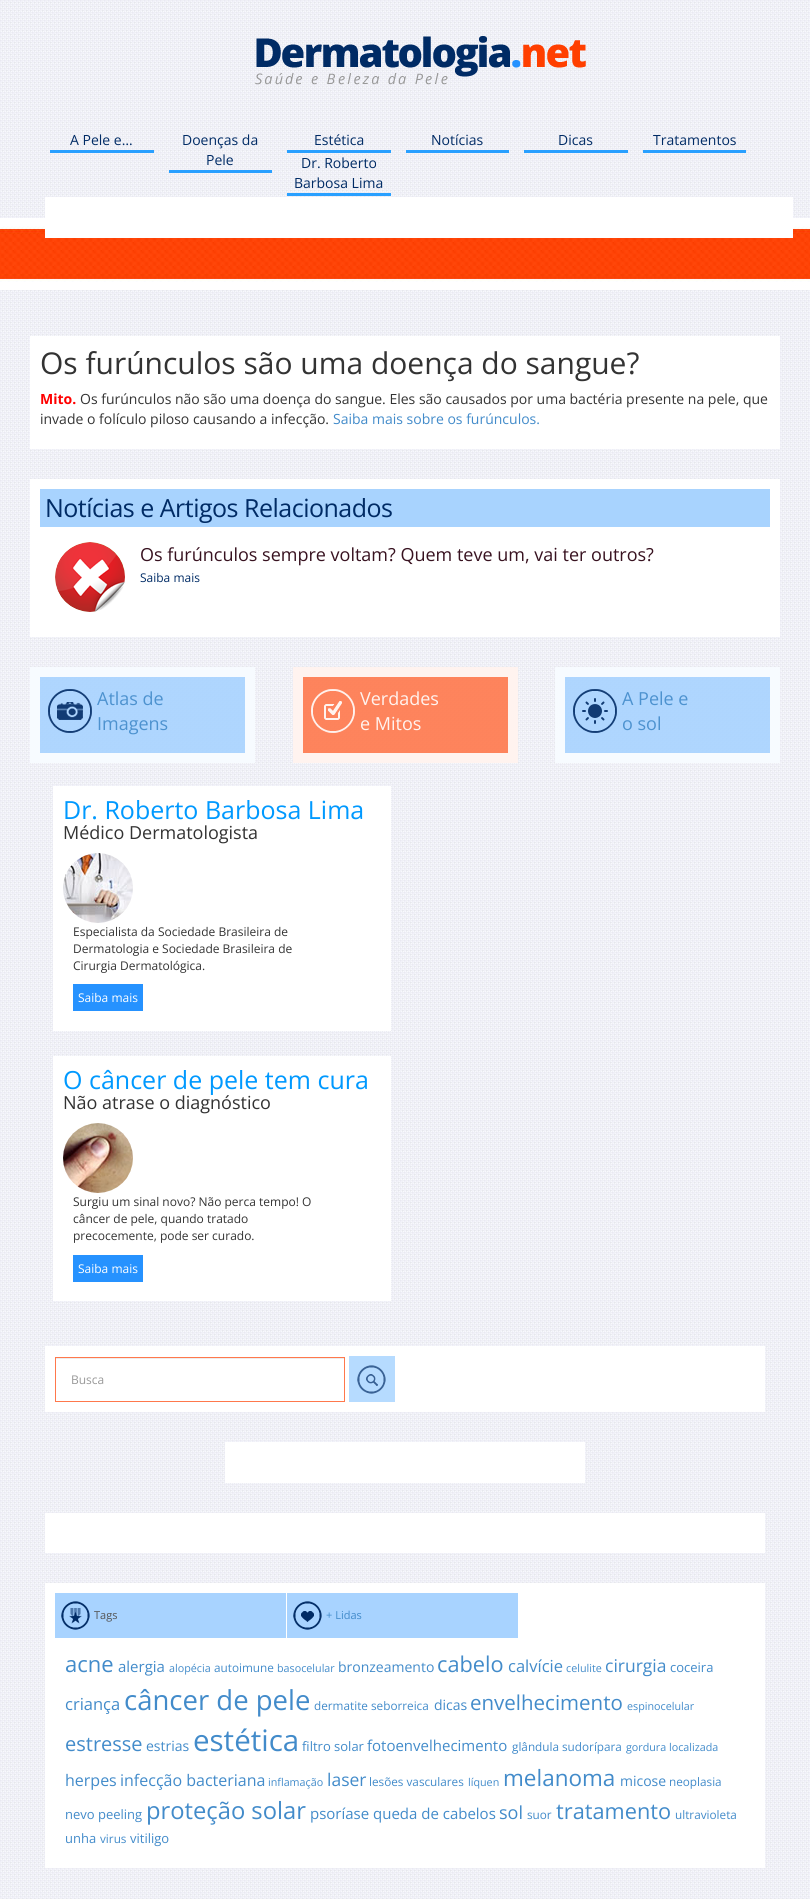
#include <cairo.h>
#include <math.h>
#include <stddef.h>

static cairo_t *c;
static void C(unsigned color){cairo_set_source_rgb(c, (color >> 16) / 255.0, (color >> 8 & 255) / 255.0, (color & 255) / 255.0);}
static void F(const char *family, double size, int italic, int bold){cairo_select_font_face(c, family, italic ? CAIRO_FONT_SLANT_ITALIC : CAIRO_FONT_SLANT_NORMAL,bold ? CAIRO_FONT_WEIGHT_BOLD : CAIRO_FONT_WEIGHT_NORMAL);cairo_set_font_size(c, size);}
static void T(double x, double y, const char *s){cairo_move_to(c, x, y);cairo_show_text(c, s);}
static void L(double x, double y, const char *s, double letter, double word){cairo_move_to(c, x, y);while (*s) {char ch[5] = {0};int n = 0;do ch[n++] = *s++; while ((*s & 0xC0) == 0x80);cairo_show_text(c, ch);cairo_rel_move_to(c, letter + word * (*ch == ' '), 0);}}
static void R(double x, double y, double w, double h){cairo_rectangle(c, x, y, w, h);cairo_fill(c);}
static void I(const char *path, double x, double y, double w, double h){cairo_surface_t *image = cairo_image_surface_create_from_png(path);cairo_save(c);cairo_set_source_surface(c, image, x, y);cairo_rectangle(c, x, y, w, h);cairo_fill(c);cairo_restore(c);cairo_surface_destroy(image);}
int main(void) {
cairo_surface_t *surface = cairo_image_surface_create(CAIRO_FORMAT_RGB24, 810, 1899);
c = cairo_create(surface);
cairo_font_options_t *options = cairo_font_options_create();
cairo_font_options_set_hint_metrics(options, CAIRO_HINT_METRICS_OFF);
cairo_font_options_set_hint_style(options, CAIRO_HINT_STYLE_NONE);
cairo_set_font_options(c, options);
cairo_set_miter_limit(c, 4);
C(0xffffff);
cairo_paint(c);
I("1.png",0,0,810,1899);
I("2.png",255,36,331,49);
C(0x29a0ff);
R(50,150,104,3);
F("Open Sans",14,0,0);
C(0x002b65);
T(70,145,"A Pele e…");
C(0x29a0ff);
R(169,170,103,3);
C(0x002b65);
T(182,145,"Doenças da");
T(206,165,"Pele");
C(0x29a0ff);
R(287,150,104,3);
C(0x002b65);
T(314,145,"Estética");
C(0x29a0ff);
R(406,150,103,3);
C(0x002b65);
T(431,145,"Notícias");
C(0x29a0ff);
R(524,150,104,3);
C(0x002b65);
T(558,145,"Dicas");
C(0x29a0ff);
R(643,150,103,3);
C(0x002b65);
T(653,145,"Tratamentos");
C(0x29a0ff);
R(287,193,104,3);
C(0x002b65);
T(301,168,"Dr. Roberto");
T(294,188,"Barbosa Lima");
I("3.png",0,218,810,72);
C(0xffffff);
R(45,197,748,41);
R(30,336,750,113);
F("Open Sans",30,0,0);
C(0x333333);
T(40,374,"Os furúnculos são uma doença do sangue?");
F("Open Sans",14,0,1);
C(0xff0000);
T(40,404,"Mito.");
F("Open Sans",14,0,0);
C(0x333333);
T(80,404,"Os furúnculos não são uma doença do sangue. Eles são causados por uma bactéria presente na pele, que");
T(40,424,"invade o folículo piloso causando a infecção.");
C(0x428bca);
T(333,424,"Saiba mais sobre os furúnculos.");
C(0xffffff);
R(30,479,750,158);
C(0xa8d3fe);
R(40,489,730,38);
F("Open Sans",25,0,0);
C(0x002b65);
L(45,517,"Notícias e Artigos Relacionados",-.5,0);
I("4.png",55,542,70,70);
F("Open Sans",18,0,0);
C(0x381220);
T(140,561,"Os furúnculos sempre voltam? Quem teve um, vai ter outros?");
F("Open Sans",12,0,0);
C(0x002b65);
T(140,582,"Saiba mais");
cairo_set_source_rgba(c,0.659,0.827,1,0.9);
cairo_rectangle(c,35,672,215,86);
cairo_fill_preserve(c);
C(0xf7fbff);
cairo_set_line_width(c,10);
cairo_stroke(c);
I("5.png",48,689,44,44);
F("Open Sans",18,0,0);
C(0x4d92cf);
T(97,705,"Atlas de");
T(97,730,"Imagens");
cairo_set_source_rgba(c,1,0.471,0.298,0.9);
cairo_rectangle(c,298,672,215,86);
cairo_fill_preserve(c);
C(0xfff3ef);
cairo_stroke(c);
I("6.png",311,689,44,44);
T(360,705,"Verdades");
T(360,730,"e Mitos");
cairo_set_source_rgba(c,0.659,0.827,1,0.9);
cairo_rectangle(c,560,672,215,86);
cairo_fill_preserve(c);
C(0xf7fbff);
cairo_stroke(c);
I("7.png",573,689,44,44);
C(0x4d92cf);
T(622,705,"A Pele e");
T(622,730,"o sol");
C(0xffffff);
R(53,786,338,245);
F("Open Sans",25,0,0);
C(0x0099ff);
T(63,819,"Dr. Roberto Barbosa Lima");
F("Open Sans",18,0,0);
C(0x333333);
T(63,839,"Médico Dermatologista");
I("8.png",63,853,70,70);
F("Open Sans",12,0,0);
T(73,936,"Especialista da Sociedade Brasileira de");
T(73,953,"Dermatologia e Sociedade Brasileira de");
T(73,970,"Cirurgia Dermatológica.");
C(0x2692ff);
R(73,984,70,27);
C(0xffffff);
T(78,1002,"Saiba mais");
R(53,1056,338,245);
F("Open Sans",25,0,0);
C(0x0099ff);
T(63,1089,"O câncer de pele tem cura");
F("Open Sans",18,0,0);
C(0x333333);
T(63,1109,"Não atrase o diagnóstico");
I("9.png",63,1123,70,70);
F("Open Sans",12,0,0);
T(73,1206,"Surgiu um sinal novo? Não perca tempo! O");
T(73,1223,"câncer de pele, quando tratado");
T(73,1240,"precocemente, pode ser curado.");
C(0x2692ff);
R(73,1255,70,27);
C(0xffffff);
T(78,1273,"Saiba mais");
R(45,1346,720,66);
C(0xececec);
R(56,1358,288,1);
cairo_rectangle(c,55.5,1357.5,289,44);
C(0xff784c);
cairo_set_line_width(c,1);
cairo_stroke(c);
C(0x999999);
T(71,1384,"Busca");
C(0xb6dbff);
R(349,1356,46,46);
I("10.png",357,1365,29,29);
C(0xffffff);
R(225,1442,360,41);
R(45,1513,720,40);
R(45,1583,720,285);
C(0xa8d3ff);
R(55,1593,231,45);
I("11.png",61,1601,29,29);
F("Open Sans",11,0,0);
C(0x555555);
T(94,1619,"Tags");
C(0xa8d3ff);
R(287,1593,231,45);
I("12.png",293,1601,29,29);
C(0x428bca);
T(326,1619,"+ Lidas");
F("Open Sans",22,0,0);
T(65,1672,"acne");
F("Open Sans",15,0,0);
T(118,1672,"alergia");
F("Open Sans",10.75,0,0);
T(169,1672,"alopécia");
F("Open Sans",11.75,0,0);
T(214,1672,"autoimune");
F("Open Sans",10.75,0,0);
T(277,1672,"basocelular");
F("Open Sans",14,0,0);
T(338,1672,"bronzeamento");
F("Open Sans",21.75,0,0);
T(437,1672,"cabelo");
F("Open Sans",16.5,0,0);
T(508,1672,"calvície");
F("Open Sans",10.75,0,0);
T(566,1672,"celulite");
F("Open Sans",17.5,0,0);
T(605,1672,"cirurgia");
F("Open Sans",13,0,0);
T(670,1672,"coceira");
F("Open Sans",16.5,0,0);
T(65,1710,"criança");
F("Open Sans",27.5,0,0);
T(124,1710,"câncer de pele");
F("Open Sans",11.75,0,0);
T(314,1710,"dermatite seborreica");
F("Open Sans",14,0,0);
T(434,1710,"dicas");
F("Open Sans",20.5,0,0);
T(470,1710,"envelhecimento");
F("Open Sans",10.75,0,0);
T(627,1710,"espinocelular");
F("Open Sans",20,0,0);
T(65,1751,"estresse");
F("Open Sans",14,0,0);
T(146,1751,"estrias");
F("Open Sans",29.5,0,0);
T(193,1751,"estética");
F("Open Sans",13,0,0);
T(302,1751,"filtro solar");
F("Open Sans",15,0,0);
T(367,1751,"fotoenvelhecimento");
F("Open Sans",11.75,0,0);
T(512,1751,"glândula sudorípara");
F("Open Sans",10.75,0,0);
T(626,1751,"gordura localizada");
F("Open Sans",16,0,0);
T(65,1786,"herpes");
T(120,1786,"infecção bacteriana");
F("Open Sans",10.75,0,0);
T(268,1786,"inflamação");
F("Open Sans",17.5,0,0);
T(327,1786,"laser");
F("Open Sans",11.75,0,0);
T(369,1786,"lesões vasculares");
F("Open Sans",10.75,0,0);
T(468,1786,"líquen");
F("Open Sans",22.5,0,0);
T(503,1786,"melanoma");
F("Open Sans",14,0,0);
T(620,1786,"micose");
F("Open Sans",11.75,0,0);
T(669,1786,"neoplasia");
F("Open Sans",13,0,0);
T(65,1819,"nevo peeling");
F("Open Sans",23.75,0,0);
T(146,1819,"proteção solar");
F("Open Sans",15,0,0);
T(310,1819,"psoríase");
T(373,1819,"queda de cabelos");
F("Open Sans",18,0,0);
T(499,1819,"sol");
F("Open Sans",11.75,0,0);
T(527,1819,"suor");
F("Open Sans",21.75,0,0);
T(556,1819,"tratamento");
F("Open Sans",11.75,0,0);
T(675,1819,"ultravioleta");
F("Open Sans",13,0,0);
T(65,1843,"unha");
F("Open Sans",11.75,0,0);
T(100,1843,"virus");
F("Open Sans",13,0,0);
T(130,1843,"vitiligo");
cairo_surface_write_to_png(surface, "o.png");
cairo_font_options_destroy(options);
cairo_destroy(c);
cairo_surface_destroy(surface);
return 0;
}
